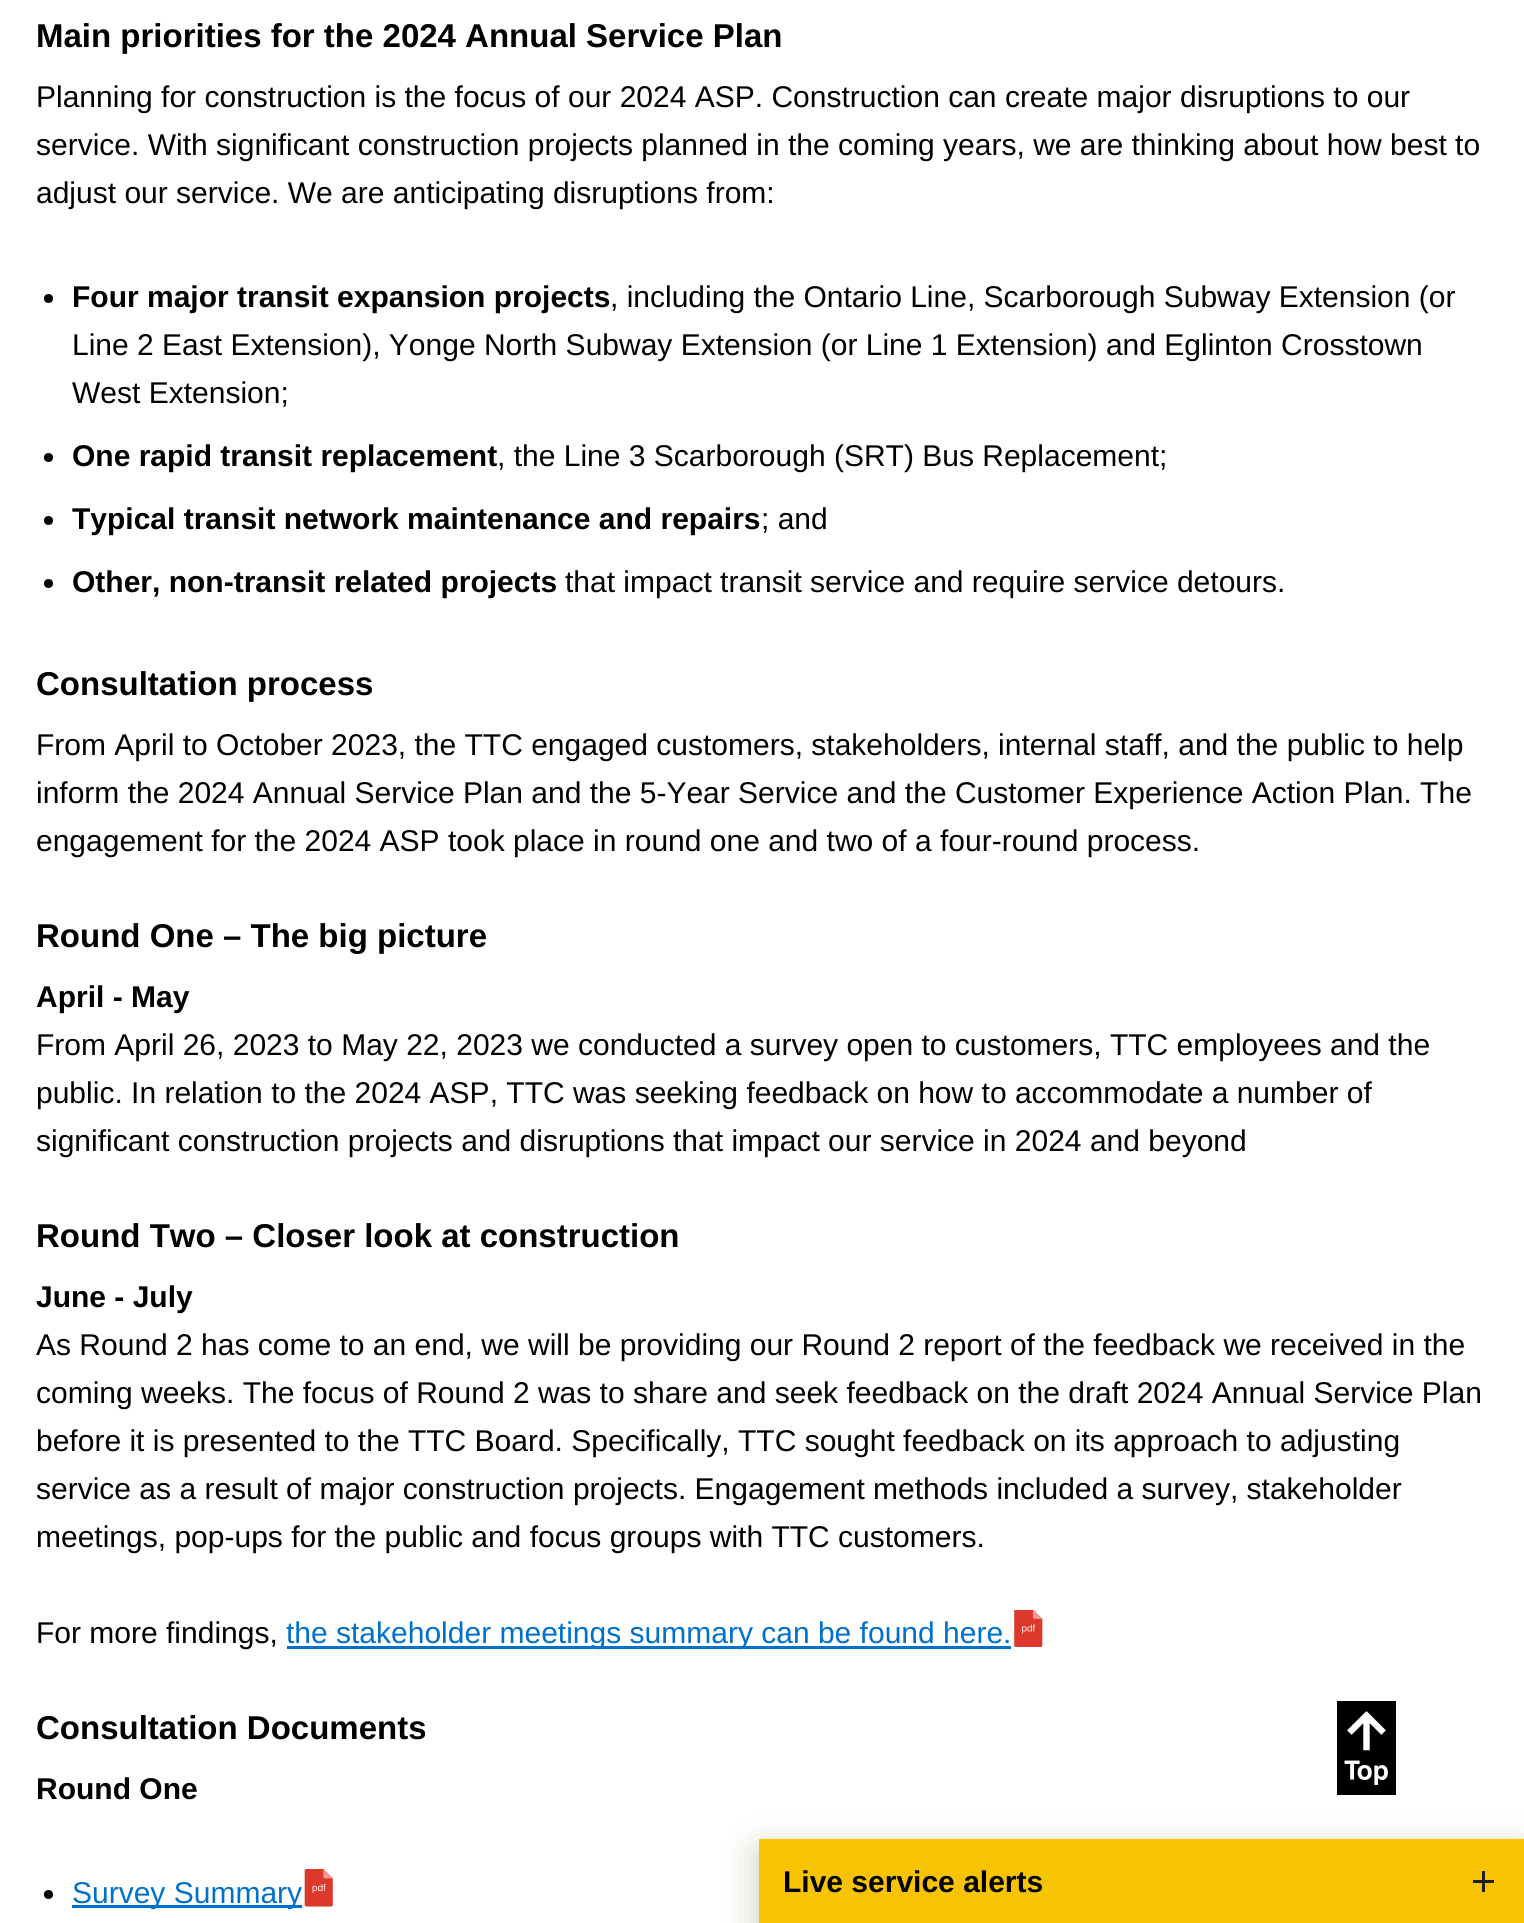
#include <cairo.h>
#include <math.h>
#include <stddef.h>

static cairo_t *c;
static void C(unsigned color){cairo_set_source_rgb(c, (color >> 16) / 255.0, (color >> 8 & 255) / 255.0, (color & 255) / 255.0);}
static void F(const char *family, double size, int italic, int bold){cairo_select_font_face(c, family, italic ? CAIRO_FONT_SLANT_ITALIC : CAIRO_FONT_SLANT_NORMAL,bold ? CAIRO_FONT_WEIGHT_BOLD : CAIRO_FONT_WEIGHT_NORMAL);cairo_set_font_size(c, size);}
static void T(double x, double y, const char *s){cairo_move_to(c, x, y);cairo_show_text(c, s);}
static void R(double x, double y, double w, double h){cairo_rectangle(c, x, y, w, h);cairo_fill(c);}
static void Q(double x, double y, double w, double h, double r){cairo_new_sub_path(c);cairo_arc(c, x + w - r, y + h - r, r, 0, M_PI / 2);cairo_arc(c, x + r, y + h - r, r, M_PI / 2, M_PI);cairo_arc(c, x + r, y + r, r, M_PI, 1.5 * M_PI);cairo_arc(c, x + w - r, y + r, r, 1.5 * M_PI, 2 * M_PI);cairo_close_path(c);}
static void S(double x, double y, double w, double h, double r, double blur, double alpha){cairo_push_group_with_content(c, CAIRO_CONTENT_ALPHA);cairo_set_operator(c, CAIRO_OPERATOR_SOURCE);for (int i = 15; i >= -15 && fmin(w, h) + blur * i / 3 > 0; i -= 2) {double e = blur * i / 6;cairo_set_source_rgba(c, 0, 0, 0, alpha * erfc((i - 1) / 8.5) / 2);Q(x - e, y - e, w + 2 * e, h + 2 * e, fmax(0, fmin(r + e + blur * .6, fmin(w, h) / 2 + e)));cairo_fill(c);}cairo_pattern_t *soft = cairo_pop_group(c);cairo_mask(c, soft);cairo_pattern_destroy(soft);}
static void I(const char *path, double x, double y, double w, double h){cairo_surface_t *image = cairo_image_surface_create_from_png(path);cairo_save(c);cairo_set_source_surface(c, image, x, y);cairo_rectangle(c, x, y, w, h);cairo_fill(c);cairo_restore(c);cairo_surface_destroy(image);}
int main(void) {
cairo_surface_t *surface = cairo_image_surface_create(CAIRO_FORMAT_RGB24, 1524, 1923);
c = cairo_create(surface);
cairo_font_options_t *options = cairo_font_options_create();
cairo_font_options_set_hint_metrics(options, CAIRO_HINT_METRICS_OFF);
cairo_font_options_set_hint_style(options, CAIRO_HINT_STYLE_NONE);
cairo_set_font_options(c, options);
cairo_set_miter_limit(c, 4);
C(0xffffff);
cairo_paint(c);
F("Liberation Sans",33,0,1);
C(0x000000);
T(36,47,"Main priorities for the 2024 Annual Service Plan");
F("Liberation Sans",30,0,0);
T(36,107,"Planning for construction is the focus of our 2024 ASP. Construction can create major disruptions to our");
T(36,155,"service. With significant construction projects planned in the coming years, we are thinking about how best to");
T(36,203,"adjust our service. We are anticipating disruptions from:");
cairo_new_path(c);
cairo_arc(c,48.5,298.5,4.5,0,2 * M_PI);
cairo_fill(c);
F("Liberation Sans",30,0,1);
T(72,307,"Four major transit expansion projects");
F("Liberation Sans",30,0,0);
T(610,307,", including the Ontario Line, Scarborough Subway Extension (or");
T(72,355,"Line 2 East Extension), Yonge North Subway Extension (or Line 1 Extension) and Eglinton Crosstown");
T(72,403,"West Extension;");
cairo_new_path(c);
cairo_arc(c,48.5,457.5,4.5,0,2 * M_PI);
cairo_fill(c);
F("Liberation Sans",30,0,1);
T(72,466,"One rapid transit replacement");
F("Liberation Sans",30,0,0);
T(497,466,", the Line 3 Scarborough (SRT) Bus Replacement;");
cairo_new_path(c);
cairo_arc(c,48.5,520.5,4.5,0,2 * M_PI);
cairo_fill(c);
F("Liberation Sans",30,0,1);
T(72,529,"Typical transit network maintenance and repairs");
F("Liberation Sans",30,0,0);
T(761,529,"; and");
cairo_new_path(c);
cairo_arc(c,48.5,583.5,4.5,0,2 * M_PI);
cairo_fill(c);
F("Liberation Sans",30,0,1);
T(72,592,"Other, non-transit related projects");
F("Liberation Sans",30,0,0);
T(565,592,"that impact transit service and require service detours.");
F("Liberation Sans",33,0,1);
T(36,695,"Consultation process");
F("Liberation Sans",30,0,0);
T(36,755,"From April to October 2023, the TTC engaged customers, stakeholders, internal staff, and the public to help");
T(36,803,"inform the 2024 Annual Service Plan and the 5-Year Service and the Customer Experience Action Plan. The");
T(36,851,"engagement for the 2024 ASP took place in round one and two of a four-round process.");
F("Liberation Sans",33,0,1);
T(36,947,"Round One – The big picture");
F("Liberation Sans",30,0,1);
T(36,1007,"April - May");
F("Liberation Sans",30,0,0);
T(36,1055,"From April 26, 2023 to May 22, 2023 we conducted a survey open to customers, TTC employees and the");
T(36,1103,"public. In relation to the 2024 ASP, TTC was seeking feedback on how to accommodate a number of");
T(36,1151,"significant construction projects and disruptions that impact our service in 2024 and beyond");
F("Liberation Sans",33,0,1);
T(36,1247,"Round Two – Closer look at construction");
F("Liberation Sans",30,0,1);
T(36,1307,"June - July");
F("Liberation Sans",30,0,0);
T(36,1355,"As Round 2 has come to an end, we will be providing our Round 2 report of the feedback we received in the");
T(36,1403,"coming weeks. The focus of Round 2 was to share and seek feedback on the draft 2024 Annual Service Plan");
T(36,1451,"before it is presented to the TTC Board. Specifically, TTC sought feedback on its approach to adjusting");
T(36,1499,"service as a result of major construction projects. Engagement methods included a survey, stakeholder");
T(36,1547,"meetings, pop-ups for the public and focus groups with TTC customers.");
T(36,1643,"For more findings,");
C(0x0070cd);
R(287,1646,724,3);
T(286,1643,"the stakeholder meetings summary can be found here.");
I("1.png",1014,1610,29,37);
F("Liberation Sans",33,0,1);
C(0x000000);
T(36,1739,"Consultation Documents");
F("Liberation Sans",30,0,1);
T(36,1799,"Round One");
cairo_new_path(c);
cairo_arc(c,48.5,1894.5,4.5,0,2 * M_PI);
cairo_fill(c);
C(0x0070cd);
R(72,1905,230,3);
F("Liberation Sans",30,0,0);
T(72,1903,"Survey Summary");
I("2.png",304,1869,29,38);
I("3.png",1337,1701,59,94);
C(0x7b6a26);
S(759,1851,765,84,0,18,.38);
C(0xf8c300);
R(759,1839,765,84);
F("Liberation Sans",30,0,1);
C(0x000000);
T(783,1892,"Live service alerts");
C(0x1e1e1e);
R(1473,1880,21,3);
R(1482,1871,3,21);
cairo_surface_write_to_png(surface, "o.png");
cairo_font_options_destroy(options);
cairo_destroy(c);
cairo_surface_destroy(surface);
return 0;
}
